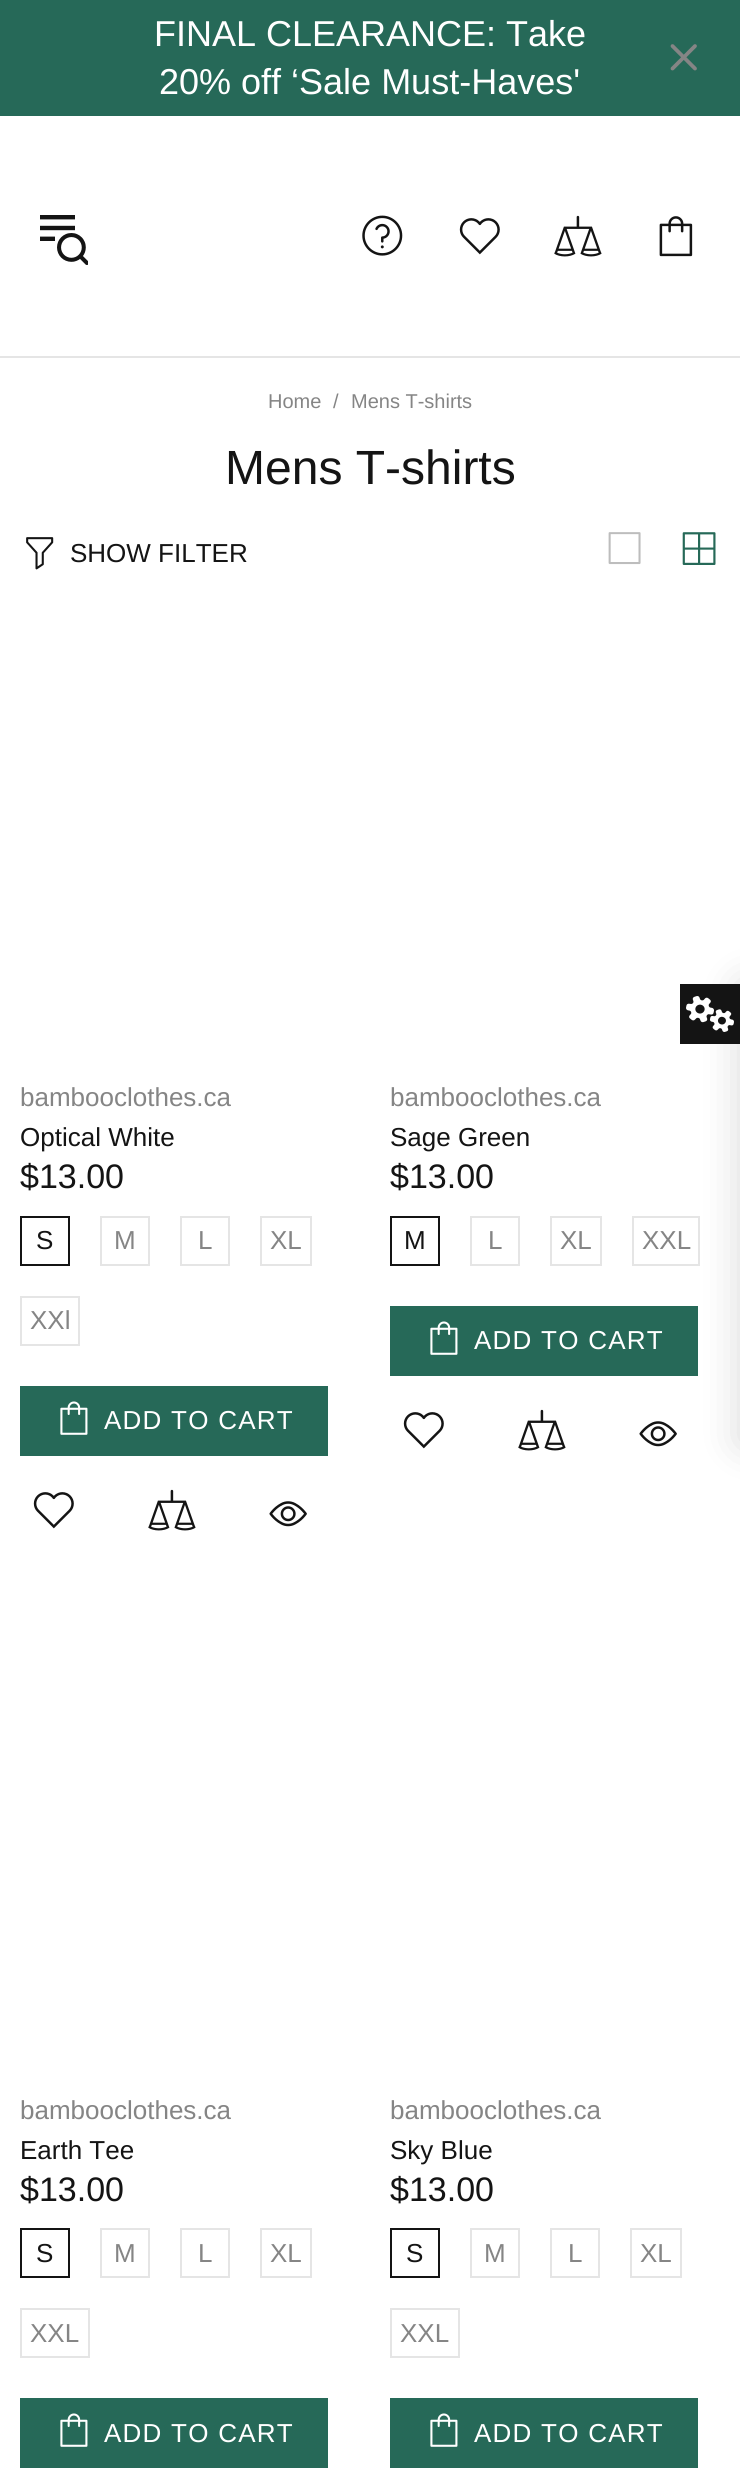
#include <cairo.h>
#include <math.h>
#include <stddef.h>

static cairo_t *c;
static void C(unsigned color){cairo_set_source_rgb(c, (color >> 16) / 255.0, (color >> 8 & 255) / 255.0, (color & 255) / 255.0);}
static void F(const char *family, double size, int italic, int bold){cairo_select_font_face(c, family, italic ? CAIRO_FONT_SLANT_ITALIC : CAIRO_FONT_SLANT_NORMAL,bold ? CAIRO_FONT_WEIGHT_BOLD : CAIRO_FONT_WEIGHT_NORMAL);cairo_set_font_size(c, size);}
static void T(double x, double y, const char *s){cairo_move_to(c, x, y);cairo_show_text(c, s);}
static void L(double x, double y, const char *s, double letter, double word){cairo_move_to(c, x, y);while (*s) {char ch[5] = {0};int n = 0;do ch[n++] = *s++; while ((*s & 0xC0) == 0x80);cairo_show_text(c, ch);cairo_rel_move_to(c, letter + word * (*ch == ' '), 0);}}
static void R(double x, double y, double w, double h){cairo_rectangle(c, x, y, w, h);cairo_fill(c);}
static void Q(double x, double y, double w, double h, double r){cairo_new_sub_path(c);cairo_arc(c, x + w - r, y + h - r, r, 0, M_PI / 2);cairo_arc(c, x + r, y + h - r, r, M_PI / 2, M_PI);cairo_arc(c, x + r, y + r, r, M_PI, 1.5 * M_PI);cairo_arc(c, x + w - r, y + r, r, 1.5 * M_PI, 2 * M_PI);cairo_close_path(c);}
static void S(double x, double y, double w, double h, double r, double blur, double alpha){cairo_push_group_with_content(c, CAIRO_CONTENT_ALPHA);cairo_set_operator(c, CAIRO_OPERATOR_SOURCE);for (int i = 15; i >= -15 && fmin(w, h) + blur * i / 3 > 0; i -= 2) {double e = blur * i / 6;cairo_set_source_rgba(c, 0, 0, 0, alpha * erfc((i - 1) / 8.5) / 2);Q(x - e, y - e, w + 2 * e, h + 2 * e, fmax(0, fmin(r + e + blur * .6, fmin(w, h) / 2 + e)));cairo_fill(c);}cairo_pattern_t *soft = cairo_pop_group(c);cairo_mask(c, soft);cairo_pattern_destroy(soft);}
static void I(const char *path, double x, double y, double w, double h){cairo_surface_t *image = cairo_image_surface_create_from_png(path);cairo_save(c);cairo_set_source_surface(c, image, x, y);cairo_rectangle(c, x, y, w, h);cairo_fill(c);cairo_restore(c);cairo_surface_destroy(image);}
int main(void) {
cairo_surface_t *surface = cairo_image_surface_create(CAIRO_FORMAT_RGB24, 740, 2476);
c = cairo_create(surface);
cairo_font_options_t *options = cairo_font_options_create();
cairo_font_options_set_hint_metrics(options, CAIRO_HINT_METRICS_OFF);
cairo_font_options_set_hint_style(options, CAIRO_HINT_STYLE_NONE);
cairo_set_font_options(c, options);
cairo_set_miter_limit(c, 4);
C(0xffffff);
cairo_paint(c);
C(0x266958);
R(0,0,740,116);
F("Arimo",36,0,0);
C(0xffffff);
T(154,46,"FINAL CLEARANCE: Take");
T(159,94,"20% off ‘Sale Must-Haves'");
I("1.png",670,44,27,27);
C(0xe5e5e5);
R(0,356,740,2);
I("2.png",40,215,48,50);
I("3.png",362,215,41,41);
I("4.png",459,218,41,37);
I("5.png",554,215,48,42);
I("6.png",659,216,34,41);
F("Arimo",20,0,0);
C(0x858585);
T(268,408,"Home");
T(333,408,"/");
T(351,408,"Mens T-shirts");
F("Arimo",48,0,0);
C(0x141414);
T(225,484,"Mens T-shirts");
I("7.png",26,537,28,33);
F("Arimo",26,0,0);
T(70,562,"SHOW FILTER");
I("8.png",608,532,33,33);
I("9.png",682,532,34,33);
C(0x858585);
T(20,1106,"bambooclothes.ca");
C(0x141414);
T(20,1146,"Optical White");
F("Arimo",34,0,0);
T(20,1188,"$13.00");
cairo_rectangle(c,21,1217,48,48);
cairo_stroke(c);
F("Arimo",26,0,0);
T(36,1249,"S");
cairo_rectangle(c,101,1217,48,48);
C(0xe5e5e5);
cairo_stroke(c);
C(0x858585);
T(114,1249,"M");
cairo_rectangle(c,181,1217,48,48);
C(0xe5e5e5);
cairo_stroke(c);
C(0x858585);
T(198,1249,"L");
cairo_rectangle(c,261,1217,50,48);
C(0xe5e5e5);
cairo_stroke(c);
C(0x858585);
T(270,1249,"XL");
cairo_rectangle(c,21,1297,58,48);
C(0xe5e5e5);
cairo_stroke(c);
C(0x858585);
T(30,1329,"XXl");
C(0x266958);
R(20,1386,308,70);
I("10.png",60,1401,28,34);
C(0xffffff);
L(104,1429,"ADD TO CART",1.25,0);
I("4.png",33,1492,41,37);
I("5.png",148,1489,48,42);
I("11.png",269,1501,38,26);
C(0x858585);
T(390,1106,"bambooclothes.ca");
C(0x141414);
T(390,1146,"Sage Green");
F("Arimo",34,0,0);
T(390,1188,"$13.00");
cairo_rectangle(c,391,1217,48,48);
cairo_stroke(c);
F("Arimo",26,0,0);
T(404,1249,"M");
cairo_rectangle(c,471,1217,48,48);
C(0xe5e5e5);
cairo_stroke(c);
C(0x858585);
T(488,1249,"L");
cairo_rectangle(c,551,1217,50,48);
C(0xe5e5e5);
cairo_stroke(c);
C(0x858585);
T(560,1249,"XL");
cairo_rectangle(c,633,1217,66,48);
C(0xe5e5e5);
cairo_stroke(c);
C(0x858585);
T(642,1249,"XXL");
C(0x266958);
R(390,1306,308,70);
I("10.png",430,1321,28,34);
C(0xffffff);
L(474,1349,"ADD TO CART",1.25,0);
I("4.png",403,1412,41,37);
I("5.png",518,1409,48,42);
I("11.png",639,1421,38,26);
C(0x858585);
T(20,2119,"bambooclothes.ca");
C(0x141414);
T(20,2159,"Earth Tee");
F("Arimo",34,0,0);
T(20,2201,"$13.00");
cairo_rectangle(c,21,2229,48,48);
cairo_stroke(c);
F("Arimo",26,0,0);
T(36,2262,"S");
cairo_rectangle(c,101,2229,48,48);
C(0xe5e5e5);
cairo_stroke(c);
C(0x858585);
T(114,2262,"M");
cairo_rectangle(c,181,2229,48,48);
C(0xe5e5e5);
cairo_stroke(c);
C(0x858585);
T(198,2262,"L");
cairo_rectangle(c,261,2229,50,48);
C(0xe5e5e5);
cairo_stroke(c);
C(0x858585);
T(270,2262,"XL");
cairo_rectangle(c,21,2309,68,48);
C(0xe5e5e5);
cairo_stroke(c);
C(0x858585);
T(30,2342,"XXL");
C(0x266958);
R(20,2398,308,70);
I("10.png",60,2413,28,34);
C(0xffffff);
L(104,2442,"ADD TO CART",1.25,0);
C(0x858585);
T(390,2119,"bambooclothes.ca");
C(0x141414);
T(390,2159,"Sky Blue");
F("Arimo",34,0,0);
T(390,2201,"$13.00");
cairo_rectangle(c,391,2229,48,48);
cairo_stroke(c);
F("Arimo",26,0,0);
T(406,2262,"S");
cairo_rectangle(c,471,2229,48,48);
C(0xe5e5e5);
cairo_stroke(c);
C(0x858585);
T(484,2262,"M");
cairo_rectangle(c,551,2229,48,48);
C(0xe5e5e5);
cairo_stroke(c);
C(0x858585);
T(568,2262,"L");
cairo_rectangle(c,631,2229,50,48);
C(0xe5e5e5);
cairo_stroke(c);
C(0x858585);
T(640,2262,"XL");
cairo_rectangle(c,391,2309,68,48);
C(0xe5e5e5);
cairo_stroke(c);
C(0x858585);
T(400,2342,"XXL");
C(0x266958);
R(390,2398,308,70);
I("10.png",430,2413,28,34);
C(0xffffff);
L(474,2442,"ADD TO CART",1.25,0);
C(0x000000);
S(740,984,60,460,0,20,.15);
C(0x141414);
R(680,984,60,60);
I("12.png",686,996,48,36);
cairo_surface_write_to_png(surface, "o.png");
cairo_font_options_destroy(options);
cairo_destroy(c);
cairo_surface_destroy(surface);
return 0;
}
